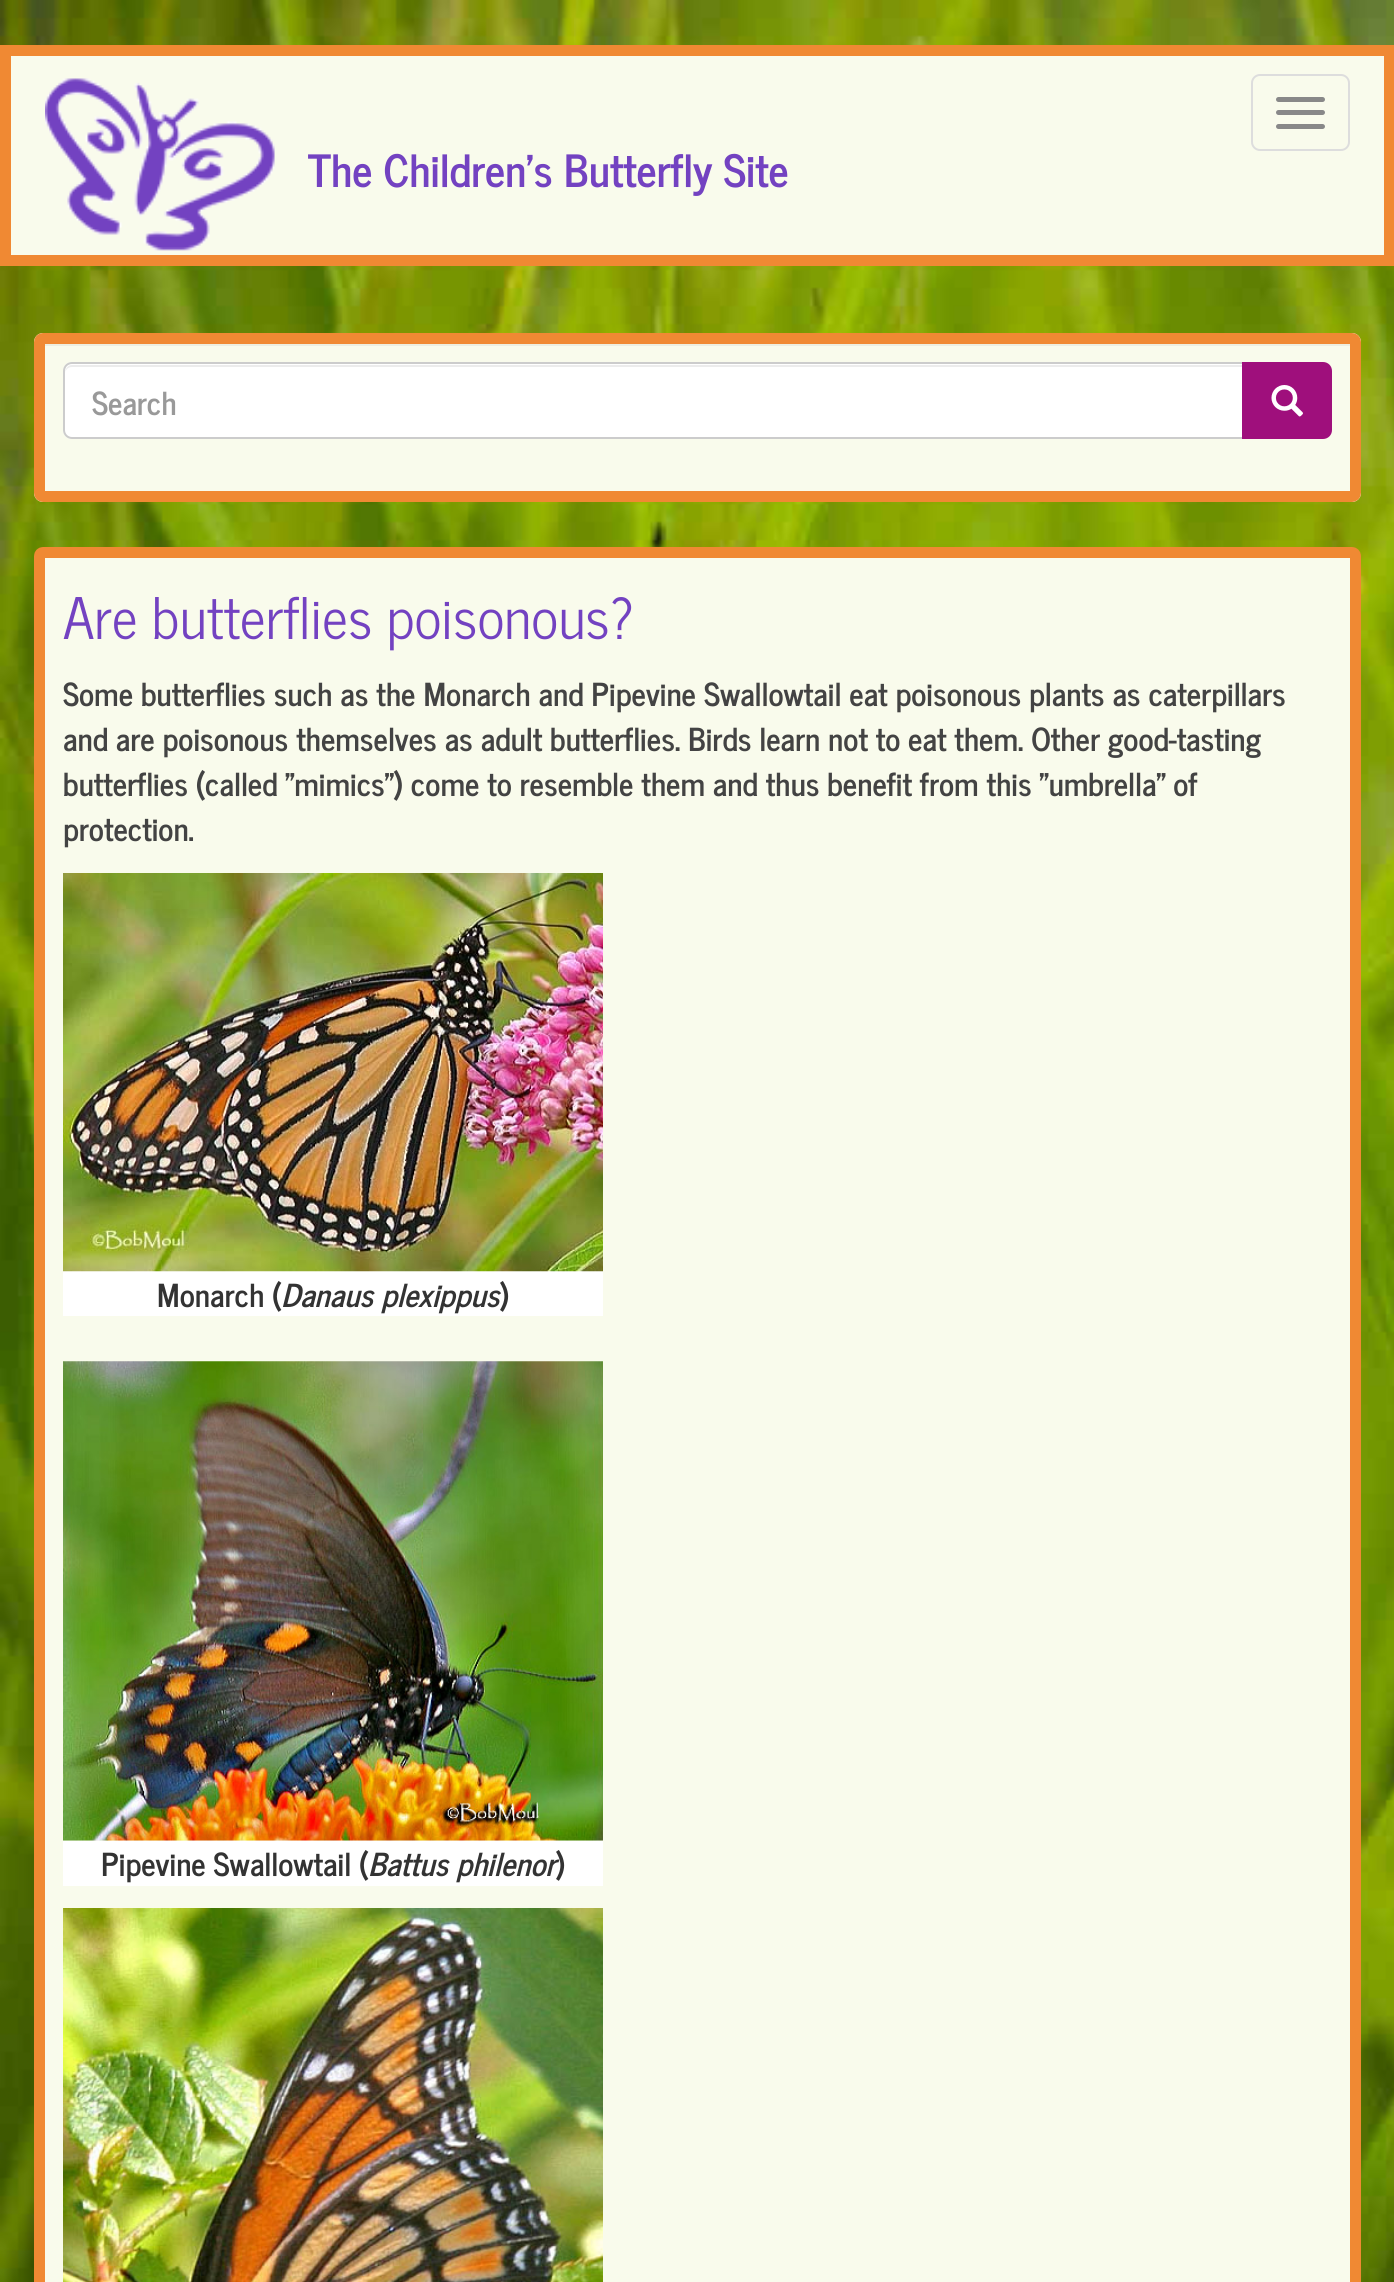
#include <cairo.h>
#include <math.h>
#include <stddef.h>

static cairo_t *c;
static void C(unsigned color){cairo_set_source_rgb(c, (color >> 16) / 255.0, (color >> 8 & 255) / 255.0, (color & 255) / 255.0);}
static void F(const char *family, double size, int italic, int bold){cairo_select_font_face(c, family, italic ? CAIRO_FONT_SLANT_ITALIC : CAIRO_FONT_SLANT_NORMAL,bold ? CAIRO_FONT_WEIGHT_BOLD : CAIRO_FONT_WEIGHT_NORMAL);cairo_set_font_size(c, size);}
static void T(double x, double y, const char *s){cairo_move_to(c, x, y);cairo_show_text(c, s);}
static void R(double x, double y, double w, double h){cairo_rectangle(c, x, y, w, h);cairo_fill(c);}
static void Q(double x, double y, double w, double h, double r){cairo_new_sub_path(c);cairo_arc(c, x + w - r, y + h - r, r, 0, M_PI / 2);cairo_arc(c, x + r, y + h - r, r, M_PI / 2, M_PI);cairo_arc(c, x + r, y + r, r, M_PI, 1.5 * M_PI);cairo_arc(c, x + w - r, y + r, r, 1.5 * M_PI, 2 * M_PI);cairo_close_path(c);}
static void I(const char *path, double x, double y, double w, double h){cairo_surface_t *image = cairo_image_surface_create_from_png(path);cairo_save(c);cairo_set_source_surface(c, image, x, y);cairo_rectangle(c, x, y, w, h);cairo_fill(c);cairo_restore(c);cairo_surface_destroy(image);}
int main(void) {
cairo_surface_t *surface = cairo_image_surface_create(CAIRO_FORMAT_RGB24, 1394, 2282);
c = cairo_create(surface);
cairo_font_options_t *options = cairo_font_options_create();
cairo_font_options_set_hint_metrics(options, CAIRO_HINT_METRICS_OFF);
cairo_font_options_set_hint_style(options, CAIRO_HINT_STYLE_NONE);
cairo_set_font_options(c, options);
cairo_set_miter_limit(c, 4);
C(0xffffff);
cairo_paint(c);
I("1.png",0,0,1394,2282);
C(0xf9fbec);
cairo_rectangle(c,5.5,50.5,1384,210);
cairo_fill_preserve(c);
C(0xf08933);
cairo_set_line_width(c,11);
cairo_stroke(c);
I("2.png",45,78,230,173);
F("News Cycle",44.1,0,1);
C(0x7342c1);
T(308,187,"The Children's Butterfly Site");
Q(1252,75,97,75,8);
C(0xdddddd);
cairo_set_line_width(c,2);
cairo_stroke(c);
C(0x888888);
Q(1276,97,49,5,2.5);
cairo_fill(c);
Q(1276,110,49,5,2.5);
cairo_fill(c);
Q(1276,124,49,5,2.5);
cairo_fill(c);
C(0xf9fbec);
Q(34,333,1327,169,9);
cairo_fill(c);
C(0xedeee0);
R(45,344,1305,2);
Q(39.5,338.5,1316,158,3.5);
C(0xf08933);
cairo_set_line_width(c,11);
cairo_stroke(c);
C(0xffffff);
cairo_new_path(c);
cairo_move_to(c,72,362);
cairo_line_to(c,1244,362);
cairo_line_to(c,1244,439);
cairo_line_to(c,72,439);
cairo_curve_to(c,67,439,63,435,63,430);
cairo_line_to(c,63,371);
cairo_curve_to(c,63,366,67,362,72,362);
cairo_close_path(c);
cairo_fill(c);
C(0xececec);
cairo_new_path(c);
cairo_move_to(c,72,367);
cairo_line_to(c,1242,367);
cairo_line_to(c,1242,365);
cairo_line_to(c,72,365);
cairo_curve_to(c,67,365,65,370,65,374);
cairo_curve_to(c,65,370,68,367,72,367);
cairo_close_path(c);
cairo_fill(c);
cairo_new_path(c);
cairo_move_to(c,72,363);
cairo_line_to(c,1243,363);
cairo_line_to(c,1243,438);
cairo_line_to(c,72,438);
cairo_curve_to(c,67.5,438,64,434.5,64,430);
cairo_line_to(c,64,371);
cairo_curve_to(c,64,366.5,67.5,363,72,363);
cairo_close_path(c);
C(0xcccccc);
cairo_set_line_width(c,2);
cairo_stroke(c);
F("News Cycle",31.5,0,1);
C(0x999999);
T(92,415,"Search");
C(0x9f0f7c);
cairo_new_path(c);
cairo_move_to(c,1243,363);
cairo_line_to(c,1323,363);
cairo_curve_to(c,1327.5,363,1331,366.5,1331,371);
cairo_line_to(c,1331,430);
cairo_curve_to(c,1331,434.5,1327.5,438,1323,438);
cairo_line_to(c,1243,438);
cairo_close_path(c);
cairo_fill_preserve(c);
cairo_stroke(c);
I("3.png",1271,385,32,32);
C(0xf9fbec);
Q(39.5,552.5,1316,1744,3.5);
cairo_fill_preserve(c);
C(0xf08933);
cairo_set_line_width(c,11);
cairo_stroke(c);
F("News Cycle",56.75,0,0);
C(0x7342c1);
T(63,639,"Are butterflies poisonous?");
F("News Cycle",31.5,0,1);
C(0x434343);
T(63,706,"Some butterflies such as the Monarch and Pipevine Swallowtail eat poisonous plants as caterpillars");
T(63,751,"and are poisonous themselves as adult butterflies. Birds learn not to eat them. Other good-tasting");
T(63,796,"butterflies (called \"mimics\") come to resemble them and thus benefit from this \"umbrella\" of");
T(63,841,"protection.");
C(0xffffff);
R(63,1271,540,45);
I("4.png",63,873,540,399);
C(0x333333);
T(157,1307,"Monarch (");
F("News Cycle",31.5,1,1);
T(281,1307,"Danaus plexippus");
F("News Cycle",31.5,0,1);
T(500,1307,")");
I("5.png",63,1361,540,480);
C(0xffffff);
R(63,1841,540,45);
C(0x333333);
T(101,1876,"Pipevine Swallowtail (");
F("News Cycle",31.5,1,1);
T(368,1876,"Battus philenor");
F("News Cycle",31.5,0,1);
T(556,1876,")");
I("6.png",63,1908,540,374);
cairo_surface_write_to_png(surface, "o.png");
cairo_font_options_destroy(options);
cairo_destroy(c);
cairo_surface_destroy(surface);
return 0;
}
